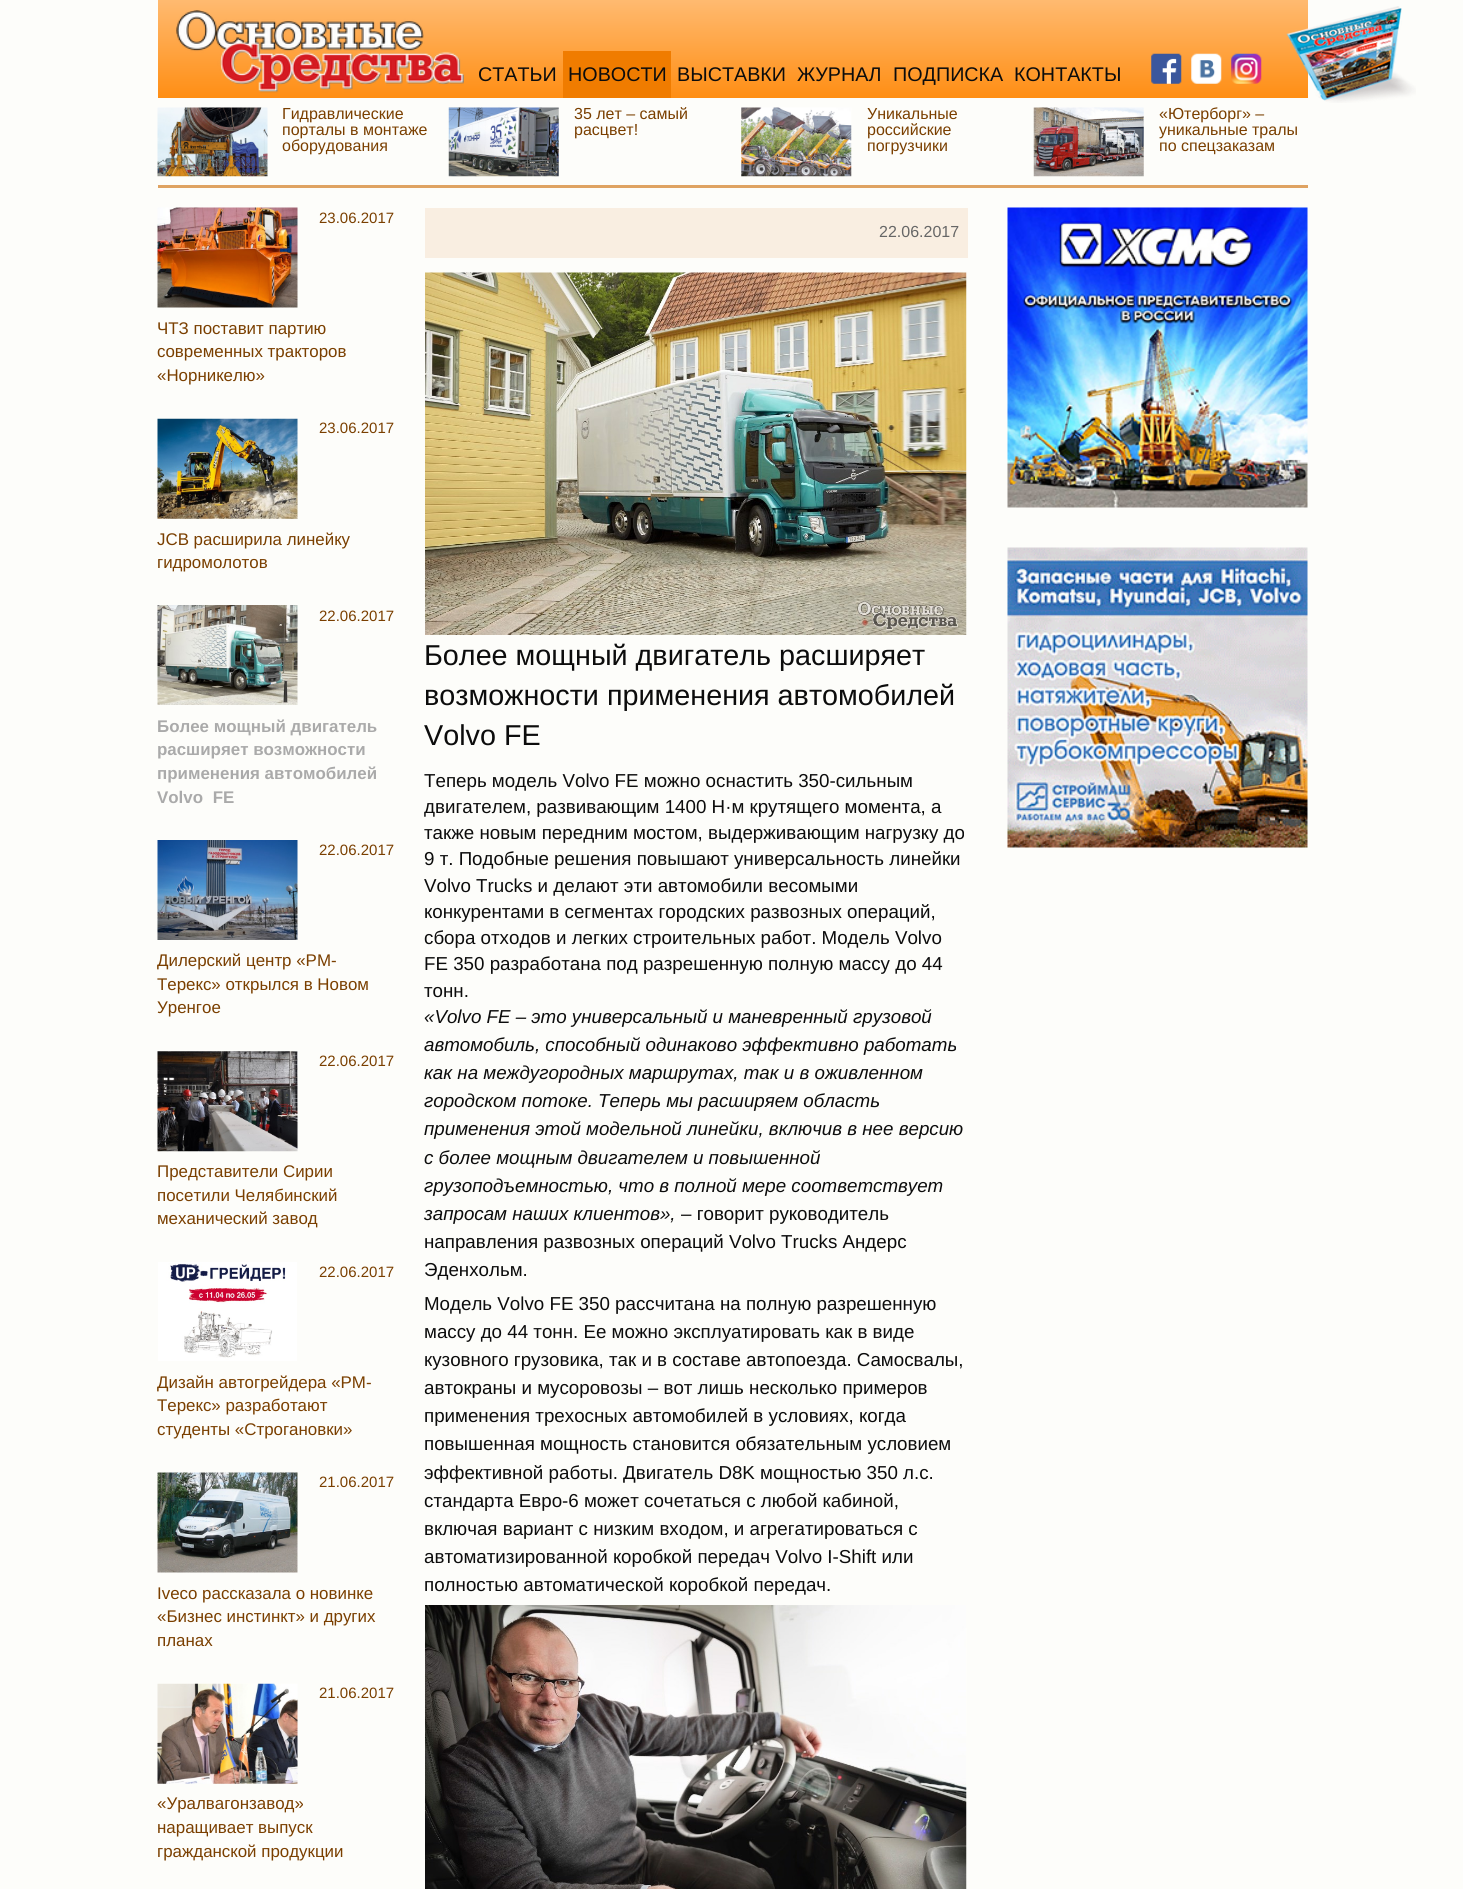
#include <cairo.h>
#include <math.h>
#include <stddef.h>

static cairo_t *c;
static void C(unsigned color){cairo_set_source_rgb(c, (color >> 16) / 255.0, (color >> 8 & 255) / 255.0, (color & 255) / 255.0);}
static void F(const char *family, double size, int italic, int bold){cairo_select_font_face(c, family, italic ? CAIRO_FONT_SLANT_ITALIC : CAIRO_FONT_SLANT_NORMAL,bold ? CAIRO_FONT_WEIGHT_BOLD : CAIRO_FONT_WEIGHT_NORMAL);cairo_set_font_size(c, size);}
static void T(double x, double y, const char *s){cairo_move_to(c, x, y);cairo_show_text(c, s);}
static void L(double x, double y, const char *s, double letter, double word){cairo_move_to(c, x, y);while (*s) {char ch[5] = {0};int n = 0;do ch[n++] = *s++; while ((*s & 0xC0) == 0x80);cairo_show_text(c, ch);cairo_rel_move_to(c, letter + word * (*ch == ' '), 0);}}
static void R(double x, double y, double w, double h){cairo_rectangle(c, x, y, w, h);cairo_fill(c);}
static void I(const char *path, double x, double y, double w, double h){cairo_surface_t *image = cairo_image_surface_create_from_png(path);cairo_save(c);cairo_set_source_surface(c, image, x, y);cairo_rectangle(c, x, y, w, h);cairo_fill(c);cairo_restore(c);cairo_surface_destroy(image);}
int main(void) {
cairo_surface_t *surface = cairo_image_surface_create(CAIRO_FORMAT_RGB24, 1463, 1889);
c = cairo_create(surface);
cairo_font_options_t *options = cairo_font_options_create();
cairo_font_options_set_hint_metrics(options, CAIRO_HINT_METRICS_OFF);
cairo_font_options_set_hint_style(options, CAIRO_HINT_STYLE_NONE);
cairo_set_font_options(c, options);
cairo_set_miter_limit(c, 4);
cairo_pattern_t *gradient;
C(0xfdfdfa);
cairo_paint(c);
gradient = cairo_pattern_create_linear(733,0,733,98);
cairo_pattern_add_color_stop_rgba(gradient,0,1,0.729,0.439,1);
cairo_pattern_add_color_stop_rgba(gradient,1,1,0.557,0.078,1);
cairo_set_source(c,gradient);
cairo_pattern_destroy(gradient);
R(158,0,1150,98);
I("1.png",176,10,288,83);
F("Liberation Sans",19.75,0,0);
C(0x0c0c0c);
T(478,81,"СТАТЬИ");
C(0xf07c00);
R(563,51,108,47);
C(0x0c0c0c);
T(568,81,"НОВОСТИ");
T(677,81,"ВЫСТАВКИ");
T(797,81,"ЖУРНАЛ");
T(893,81,"ПОДПИСКА");
T(1014,81,"КОНТАКТЫ");
I("2.png",1151,53,31,31);
I("3.png",1191,53,31,31);
I("4.png",1231,53,31,31);
I("5.png",1286,6,130,97);
C(0xdfa362);
R(158,185,1150,3);
I("6.png",157,107,111,70);
F("Liberation Sans",16,0,0);
C(0x7a3f00);
T(282,119,"Гидравлические");
T(282,135,"порталы в монтаже");
T(282,151,"оборудования");
I("7.png",448,107,111,70);
T(574,119,"35 лет – самый");
T(574,135,"расцвет!");
I("8.png",741,107,111,70);
T(867,119,"Уникальные");
T(867,135,"российские");
T(867,151,"погрузчики");
I("9.png",1033,107,111,70);
T(1159,119,"«Ютерборг» –");
T(1159,135,"уникальные тралы");
T(1159,151,"по спецзаказам");
I("10.png",157,207,141,101);
F("Liberation Sans",15,0,0);
T(319,223,"23.06.2017");
F("Liberation Sans",16.9,0,0);
T(157,334,"ЧТЗ поставит партию");
T(157,357,"современных тракторов");
T(157,381,"«Норникелю»");
I("11.png",157,418,141,101);
F("Liberation Sans",15,0,0);
T(319,433,"23.06.2017");
F("Liberation Sans",16.9,0,0);
T(157,545,"JCB расширила линейку");
T(157,568,"гидромолотов");
I("12.png",157,605,141,100);
F("Liberation Sans",15,0,0);
T(319,621,"22.06.2017");
F("Liberation Sans",16.9,0,1);
C(0xaaaaaa);
T(157,732,"Более мощный двигатель");
T(157,755,"расширяет возможности");
T(157,779,"применения автомобилей");
L(157,803,"Volvo FE",0,5);
I("13.png",157,840,141,100);
F("Liberation Sans",15,0,0);
C(0x7a3f00);
T(319,855,"22.06.2017");
F("Liberation Sans",16.9,0,0);
T(157,966,"Дилерский центр «РМ-");
T(157,990,"Терекс» открылся в Новом");
T(157,1013,"Уренгое");
I("14.png",157,1051,141,101);
F("Liberation Sans",15,0,0);
T(319,1066,"22.06.2017");
F("Liberation Sans",16.9,0,0);
T(157,1177,"Представители Сирии");
T(157,1201,"посетили Челябинский");
T(157,1224,"механический завод");
I("15.png",158,1262,139,99);
F("Liberation Sans",15,0,0);
T(319,1277,"22.06.2017");
F("Liberation Sans",16.9,0,0);
T(157,1388,"Дизайн автогрейдера «РМ-");
T(157,1411,"Терекс» разработают");
T(157,1435,"студенты «Строгановки»");
I("16.png",157,1472,141,101);
F("Liberation Sans",15,0,0);
T(319,1487,"21.06.2017");
F("Liberation Sans",16.9,0,0);
T(157,1599,"Iveco рассказала о новинке");
T(157,1622,"«Бизнес инстинкт» и других");
T(157,1646,"планах");
I("17.png",157,1683,141,101);
F("Liberation Sans",15,0,0);
T(319,1698,"21.06.2017");
F("Liberation Sans",16.9,0,0);
T(157,1809,"«Уралвагонзавод»");
T(157,1833,"наращивает выпуск");
T(157,1857,"гражданской продукции");
C(0xf9eee1);
R(425,208,543,50);
F("Liberation Sans",16,0,0);
C(0x666666);
T(879,237,"22.06.2017");
I("18.png",425,272,542,363);
F("Liberation Sans",28.75,0,0);
C(0x0c0c0c);
T(424,665,"Более мощный двигатель расширяет");
T(424,705,"возможности применения автомобилей");
T(424,745,"Volvo FE");
F("Liberation Sans",18.75,0,0);
T(424,787,"Теперь модель Volvo FE можно оснастить 350-сильным");
T(424,813,"двигателем, развивающим 1400 Н·м крутящего момента, а");
T(424,839,"также новым передним мостом, выдерживающим нагрузку до");
T(424,865,"9 т. Подобные решения повышают универсальность линейки");
T(424,892,"Volvo Trucks и делают эти автомобили весомыми");
T(424,918,"конкурентами в сегментах городских развозных операций,");
T(424,944,"сбора отходов и легких строительных работ. Модель Volvo");
T(424,970,"FE 350 разработана под разрешенную полную массу до 44");
T(424,997,"тонн.");
F("Liberation Sans",18.75,1,0);
T(424,1023,"«Volvo FE – это универсальный и маневренный грузовой");
T(424,1051,"автомобиль, способный одинаково эффективно работать");
T(424,1079,"как на междугородных маршрутах, так и в оживленном");
T(424,1107,"городском потоке. Теперь мы расширяем область");
T(424,1135,"применения этой модельной линейки, включив в нее версию");
T(424,1164,"с более мощным двигателем и повышенной");
T(424,1192,"грузоподъемностью, что в полной мере соответствует");
T(424,1220,"запросам наших клиентов»,");
F("Liberation Sans",18.75,0,0);
T(681,1220,"– говорит руководитель");
T(424,1248,"направления развозных операций Volvo Trucks Андерс");
T(424,1276,"Эденхольм.");
T(424,1310,"Модель Volvo FE 350 рассчитана на полную разрешенную");
T(424,1338,"массу до 44 тонн. Ее можно эксплуатировать как в виде");
T(424,1366,"кузовного грузовика, так и в составе автопоезда. Самосвалы,");
T(424,1394,"автокраны и мусоровозы – вот лишь несколько примеров");
T(424,1422,"применения трехосных автомобилей в условиях, когда");
T(424,1450,"повышенная мощность становится обязательным условием");
T(424,1479,"эффективной работы. Двигатель D8K мощностью 350 л.с.");
T(424,1507,"стандарта Евро-6 может сочетаться с любой кабиной,");
T(424,1535,"включая вариант с низким входом, и агрегатироваться с");
T(424,1563,"автоматизированной коробкой передач Volvo I-Shift или");
T(424,1591,"полностью автоматической коробкой передач.");
I("19.png",425,1605,542,284);
I("20.png",1007,207,301,301);
I("21.png",1007,547,301,301);
cairo_surface_write_to_png(surface, "o.png");
cairo_font_options_destroy(options);
cairo_destroy(c);
cairo_surface_destroy(surface);
return 0;
}
